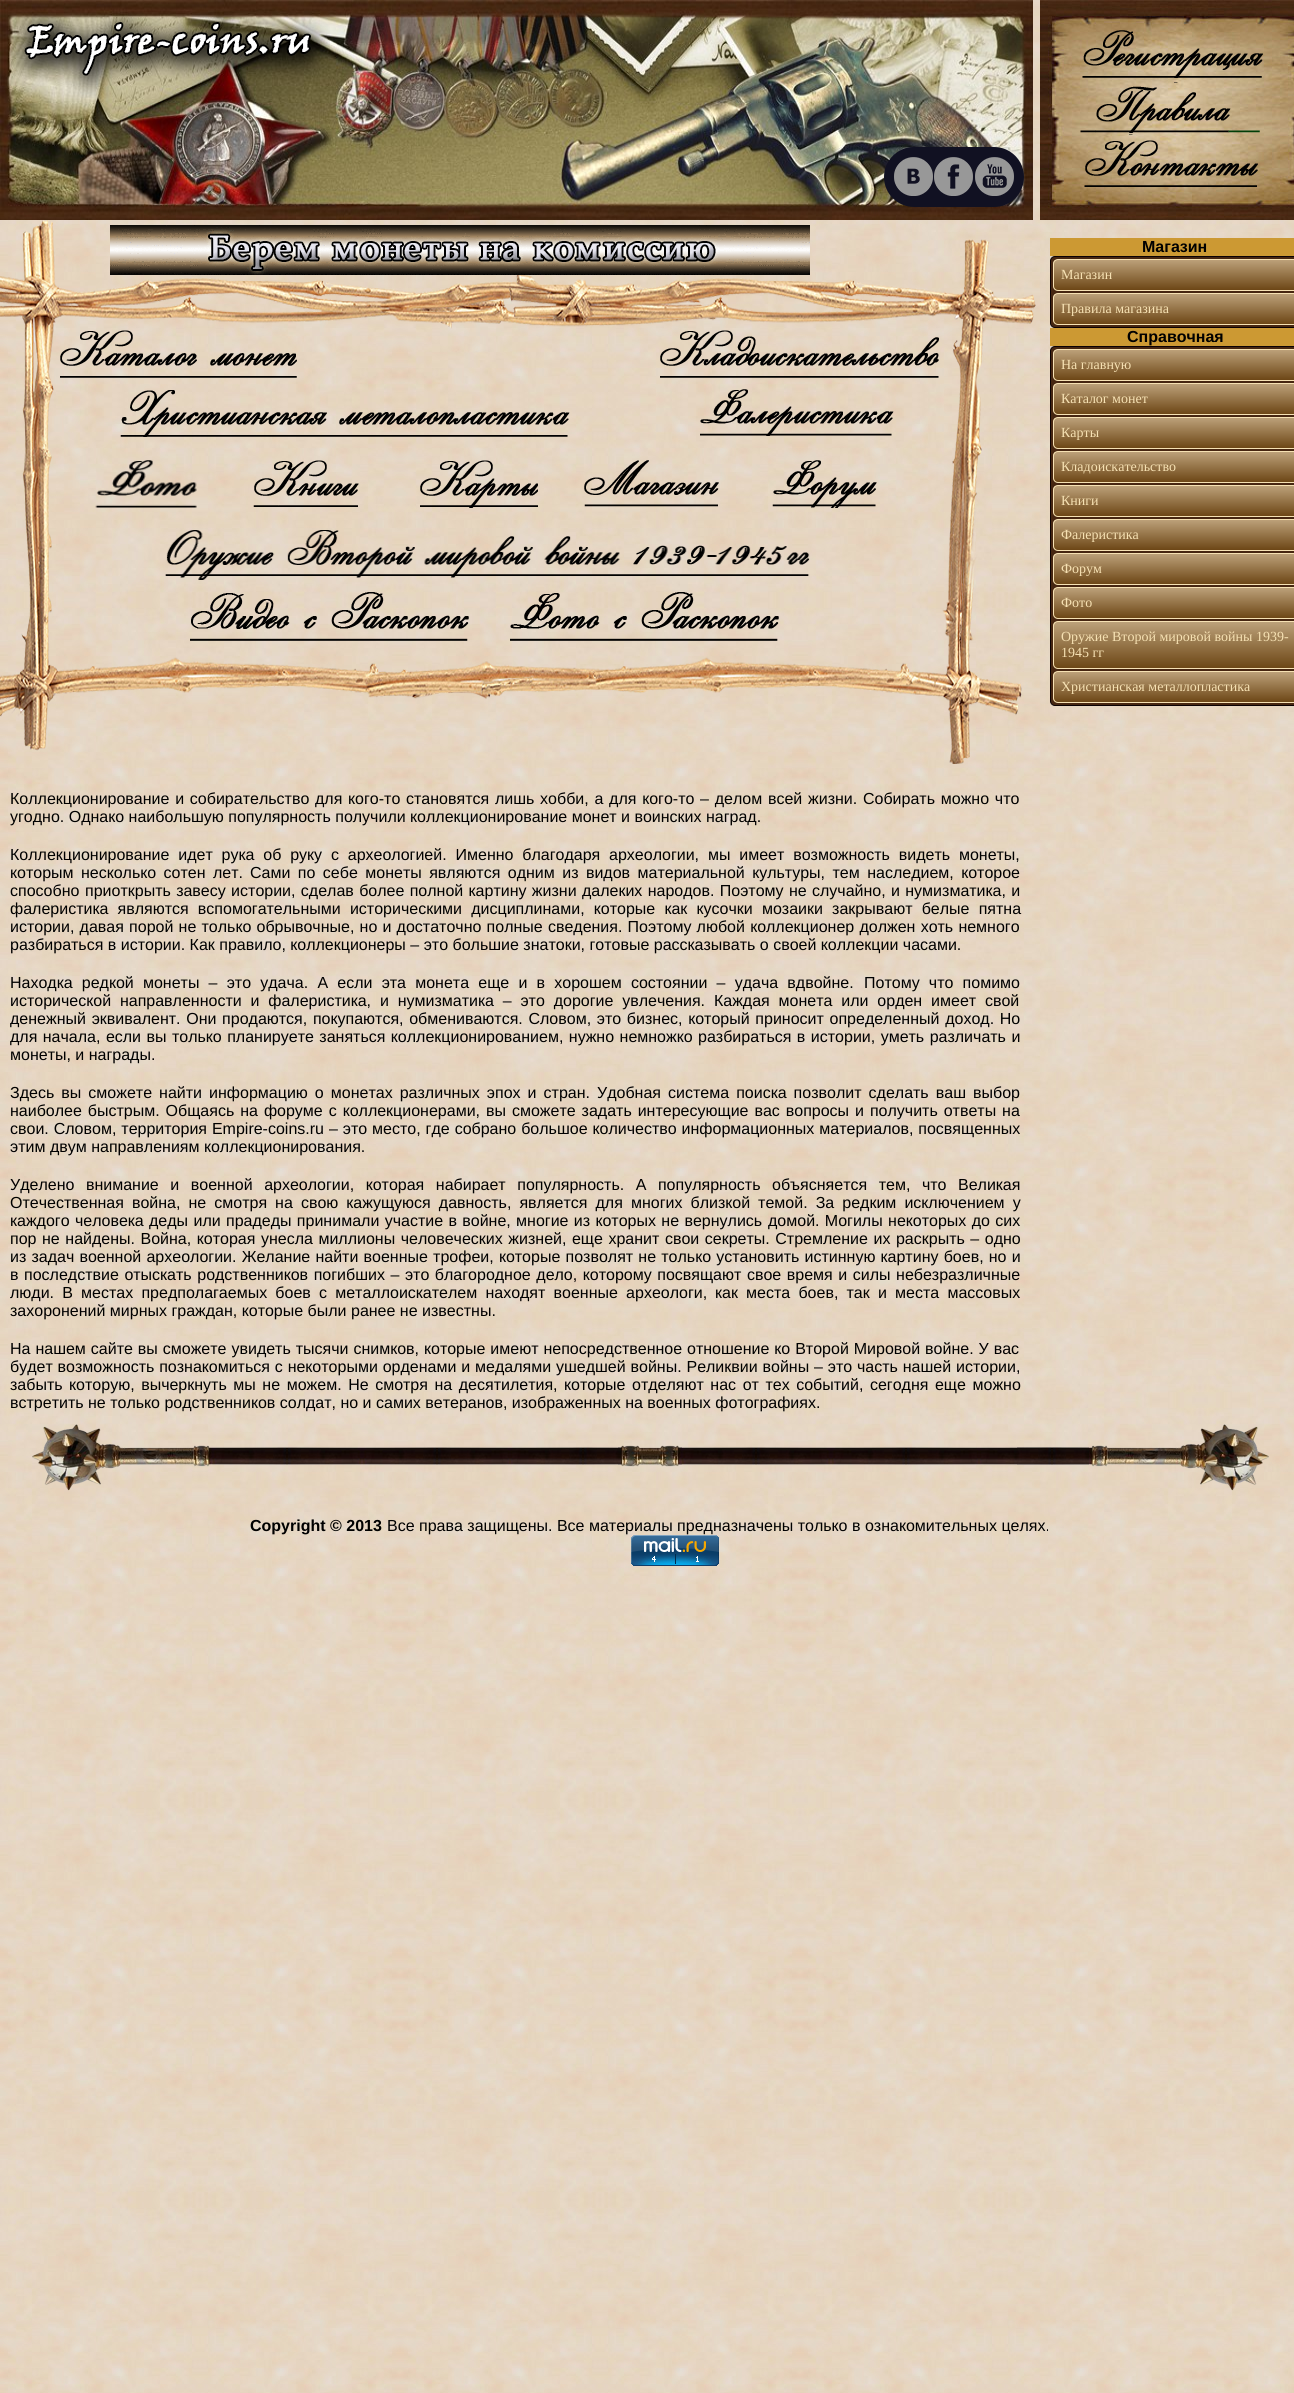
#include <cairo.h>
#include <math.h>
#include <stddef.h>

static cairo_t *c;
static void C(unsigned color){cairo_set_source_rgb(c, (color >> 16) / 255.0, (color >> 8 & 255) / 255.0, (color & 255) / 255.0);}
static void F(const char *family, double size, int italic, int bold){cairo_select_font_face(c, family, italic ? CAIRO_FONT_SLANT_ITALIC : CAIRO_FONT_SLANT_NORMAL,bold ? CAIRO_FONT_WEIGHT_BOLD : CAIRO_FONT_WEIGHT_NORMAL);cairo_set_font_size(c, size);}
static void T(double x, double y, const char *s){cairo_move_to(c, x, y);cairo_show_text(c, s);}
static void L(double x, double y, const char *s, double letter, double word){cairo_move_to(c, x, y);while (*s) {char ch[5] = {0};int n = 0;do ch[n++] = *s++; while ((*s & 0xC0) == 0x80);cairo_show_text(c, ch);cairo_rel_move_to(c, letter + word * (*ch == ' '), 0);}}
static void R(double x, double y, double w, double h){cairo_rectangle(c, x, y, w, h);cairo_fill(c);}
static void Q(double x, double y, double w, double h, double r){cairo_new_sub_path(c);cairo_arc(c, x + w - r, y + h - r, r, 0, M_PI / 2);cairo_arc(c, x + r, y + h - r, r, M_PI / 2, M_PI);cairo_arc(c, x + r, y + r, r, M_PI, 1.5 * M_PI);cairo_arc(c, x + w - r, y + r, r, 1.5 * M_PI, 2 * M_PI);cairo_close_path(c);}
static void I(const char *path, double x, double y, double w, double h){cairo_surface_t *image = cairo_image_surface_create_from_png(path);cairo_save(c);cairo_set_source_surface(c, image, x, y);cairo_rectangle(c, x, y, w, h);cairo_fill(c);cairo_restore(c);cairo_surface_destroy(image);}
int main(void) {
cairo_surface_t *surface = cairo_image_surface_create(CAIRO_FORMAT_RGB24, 1294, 2393);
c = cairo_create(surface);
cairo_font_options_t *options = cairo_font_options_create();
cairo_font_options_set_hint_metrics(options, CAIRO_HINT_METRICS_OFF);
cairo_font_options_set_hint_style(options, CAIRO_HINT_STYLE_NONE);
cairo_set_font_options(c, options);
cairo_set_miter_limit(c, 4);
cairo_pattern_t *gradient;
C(0xffffff);
cairo_paint(c);
I("1.png",0,0,1294,2393);
I("2.png",0,0,1033,220);
I("3.png",1040,0,254,220);
I("4.png",1082,30,181,48);
I("5.png",1080,82,180,51);
I("6.png",1084,134,174,53);
I("7.png",10,12,320,86);
C(0x111122);
Q(884,147,140,60,30);
cairo_fill(c);
I("8.png",894,157,39,39);
I("9.png",934,157,39,39);
I("10.png",975,157,39,39);
C(0xcc9933);
R(1050,238,244,18);
F("Liberation Sans",16,0,1);
C(0x000000);
T(1142,252,"Магазин");
C(0x462611);
Q(1050.5,256.5,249,71,4.5);
cairo_fill_preserve(c);
C(0x0b0103);
cairo_set_line_width(c,1);
cairo_stroke(c);
cairo_save(c);
Q(1053,259,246,32,5);
cairo_clip(c);
gradient = cairo_pattern_create_linear(1176,260,1176,290);
cairo_pattern_add_color_stop_rgba(gradient,0,0.737,0.631,0.475,1);
cairo_pattern_add_color_stop_rgba(gradient,1,0.427,0.278,0.086,1);
cairo_set_source(c,gradient);
cairo_pattern_destroy(gradient);
R(1053,260,241,30);
cairo_restore(c);
Q(1053.5,259.5,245,31,4.5);
C(0xf6e1b3);
cairo_stroke(c);
F("Liberation Serif",14,0,0);
T(1061,279,"Магазин");
cairo_save(c);
Q(1053,293,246,32,5);
cairo_clip(c);
gradient = cairo_pattern_create_linear(1176,294,1176,324);
cairo_pattern_add_color_stop_rgba(gradient,0,0.737,0.631,0.475,1);
cairo_pattern_add_color_stop_rgba(gradient,1,0.427,0.278,0.086,1);
cairo_set_source(c,gradient);
cairo_pattern_destroy(gradient);
R(1053,294,241,30);
cairo_restore(c);
Q(1053.5,293.5,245,31,4.5);
cairo_stroke(c);
T(1061,313,"Правила магазина");
C(0xcc9933);
R(1050,328,244,18);
F("Liberation Sans",16,0,1);
C(0x000000);
T(1127,342,"Справочная");
C(0x462611);
Q(1050.5,346.5,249,359,4.5);
cairo_fill_preserve(c);
C(0x0b0103);
cairo_stroke(c);
cairo_save(c);
Q(1053,349,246,32,5);
cairo_clip(c);
gradient = cairo_pattern_create_linear(1176,350,1176,380);
cairo_pattern_add_color_stop_rgba(gradient,0,0.737,0.631,0.475,1);
cairo_pattern_add_color_stop_rgba(gradient,1,0.427,0.278,0.086,1);
cairo_set_source(c,gradient);
cairo_pattern_destroy(gradient);
R(1053,350,241,30);
cairo_restore(c);
Q(1053.5,349.5,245,31,4.5);
C(0xf6e1b3);
cairo_stroke(c);
F("Liberation Serif",14,0,0);
T(1061,369,"На главную");
cairo_save(c);
Q(1053,383,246,32,5);
cairo_clip(c);
gradient = cairo_pattern_create_linear(1176,384,1176,414);
cairo_pattern_add_color_stop_rgba(gradient,0,0.737,0.631,0.475,1);
cairo_pattern_add_color_stop_rgba(gradient,1,0.427,0.278,0.086,1);
cairo_set_source(c,gradient);
cairo_pattern_destroy(gradient);
R(1053,384,241,30);
cairo_restore(c);
Q(1053.5,383.5,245,31,4.5);
cairo_stroke(c);
T(1061,403,"Каталог монет");
cairo_save(c);
Q(1053,417,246,32,5);
cairo_clip(c);
gradient = cairo_pattern_create_linear(1176,418,1176,448);
cairo_pattern_add_color_stop_rgba(gradient,0,0.737,0.631,0.475,1);
cairo_pattern_add_color_stop_rgba(gradient,1,0.427,0.278,0.086,1);
cairo_set_source(c,gradient);
cairo_pattern_destroy(gradient);
R(1053,418,241,30);
cairo_restore(c);
Q(1053.5,417.5,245,31,4.5);
cairo_stroke(c);
T(1061,437,"Карты");
cairo_save(c);
Q(1053,451,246,32,5);
cairo_clip(c);
gradient = cairo_pattern_create_linear(1176,452,1176,482);
cairo_pattern_add_color_stop_rgba(gradient,0,0.737,0.631,0.475,1);
cairo_pattern_add_color_stop_rgba(gradient,1,0.427,0.278,0.086,1);
cairo_set_source(c,gradient);
cairo_pattern_destroy(gradient);
R(1053,452,241,30);
cairo_restore(c);
Q(1053.5,451.5,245,31,4.5);
cairo_stroke(c);
T(1061,471,"Кладоискательство");
cairo_save(c);
Q(1053,485,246,32,5);
cairo_clip(c);
gradient = cairo_pattern_create_linear(1176,486,1176,516);
cairo_pattern_add_color_stop_rgba(gradient,0,0.737,0.631,0.475,1);
cairo_pattern_add_color_stop_rgba(gradient,1,0.427,0.278,0.086,1);
cairo_set_source(c,gradient);
cairo_pattern_destroy(gradient);
R(1053,486,241,30);
cairo_restore(c);
Q(1053.5,485.5,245,31,4.5);
cairo_stroke(c);
T(1061,505,"Книги");
cairo_save(c);
Q(1053,519,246,32,5);
cairo_clip(c);
gradient = cairo_pattern_create_linear(1176,520,1176,550);
cairo_pattern_add_color_stop_rgba(gradient,0,0.737,0.631,0.475,1);
cairo_pattern_add_color_stop_rgba(gradient,1,0.427,0.278,0.086,1);
cairo_set_source(c,gradient);
cairo_pattern_destroy(gradient);
R(1053,520,241,30);
cairo_restore(c);
Q(1053.5,519.5,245,31,4.5);
cairo_stroke(c);
T(1061,539,"Фалеристика");
cairo_save(c);
Q(1053,553,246,32,5);
cairo_clip(c);
gradient = cairo_pattern_create_linear(1176,554,1176,584);
cairo_pattern_add_color_stop_rgba(gradient,0,0.737,0.631,0.475,1);
cairo_pattern_add_color_stop_rgba(gradient,1,0.427,0.278,0.086,1);
cairo_set_source(c,gradient);
cairo_pattern_destroy(gradient);
R(1053,554,241,30);
cairo_restore(c);
Q(1053.5,553.5,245,31,4.5);
cairo_stroke(c);
T(1061,573,"Форум");
cairo_save(c);
Q(1053,587,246,32,5);
cairo_clip(c);
gradient = cairo_pattern_create_linear(1176,588,1176,618);
cairo_pattern_add_color_stop_rgba(gradient,0,0.737,0.631,0.475,1);
cairo_pattern_add_color_stop_rgba(gradient,1,0.427,0.278,0.086,1);
cairo_set_source(c,gradient);
cairo_pattern_destroy(gradient);
R(1053,588,241,30);
cairo_restore(c);
Q(1053.5,587.5,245,31,4.5);
cairo_stroke(c);
T(1061,607,"Фото");
cairo_save(c);
Q(1053,621,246,48,5);
cairo_clip(c);
gradient = cairo_pattern_create_linear(1176,622,1176,668);
cairo_pattern_add_color_stop_rgba(gradient,0,0.737,0.631,0.475,1);
cairo_pattern_add_color_stop_rgba(gradient,1,0.427,0.278,0.086,1);
cairo_set_source(c,gradient);
cairo_pattern_destroy(gradient);
R(1053,622,241,46);
cairo_restore(c);
Q(1053.5,621.5,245,47,4.5);
cairo_stroke(c);
T(1061,641,"Оружие Второй мировой войны 1939-");
T(1061,657,"1945 гг");
cairo_save(c);
Q(1053,671,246,32,5);
cairo_clip(c);
gradient = cairo_pattern_create_linear(1176,672,1176,702);
cairo_pattern_add_color_stop_rgba(gradient,0,0.737,0.631,0.475,1);
cairo_pattern_add_color_stop_rgba(gradient,1,0.427,0.278,0.086,1);
cairo_set_source(c,gradient);
cairo_pattern_destroy(gradient);
R(1053,672,241,30);
cairo_restore(c);
Q(1053.5,671.5,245,31,4.5);
cairo_stroke(c);
T(1061,691,"Христианская металлопластика");
I("11.png",0,220,1036,544);
I("12.png",60,330,237,48);
I("13.png",660,330,279,48);
I("14.png",120,390,450,47);
I("15.png",700,389,194,47);
I("16.png",95,460,102,48);
I("17.png",253,460,106,47);
I("18.png",420,460,118,48);
I("19.png",584,460,135,47);
I("20.png",772,460,105,48);
I("21.png",165,530,645,50);
I("22.png",190,592,279,49);
I("23.png",510,592,269,49);
I("24.png",110,225,700,50);
F("Liberation Sans",16,0,0);
C(0x000000);
L(10,804,"Коллекционирование и собирательство для кого-то становятся лишь хобби, а для кого-то – делом всей жизни. Собирать можно что",0,1.3);
T(10,822,"угодно. Однако наибольшую популярность получили коллекционирование монет и воинских наград.");
L(10,860,"Коллекционирование идет рука об руку с археологией. Именно благодаря археологии, мы имеет возможность видеть монеты,",0,4.4);
L(10,878,"которым несколько сотен лет.",0,3);
L(250,878,"Сами по себе монеты являются одним из видов материальной культуры, тем наследием, которое",0,3);
T(10,896,"способно");
L(85,896,"приоткрыть завесу истории, сделав более полной картину жизни далеких народов. Поэтому не случайно, и нумизматика, и",0,.9);
L(10,914,"фалеристика являются вспомогательными историческими дисциплинами, которые как кусочки мозаики закрывают белые пятна",0,4.75);
L(10,932,"истории, давая порой не только обрывочные, но и достаточно полные сведения. Поэтому любой коллекционер должен хоть немного",0,.75);
T(10,950,"разбираться в истории. Как правило, коллекционеры – это большие знатоки, готовые рассказывать о своей коллекции часами.");
L(10,988,"Находка редкой монеты – это удача. А если эта монета еще и в хорошем состоянии – удача вдвойне.",0,4.75);
L(864,988,"Потому что помимо",0,4.75);
L(10,1006,"исторической направленности и фалеристика, и нумизматика – это дорогие увлечения. Каждая монета или орден имеет свой",0,4.4);
L(10,1024,"денежный эквивалент. Они продаются, покупаются, обмениваются. Словом, это бизнес, который приносит определенный доход. Но",0,1.25);
L(10,1042,"для начала, если вы только планируете заняться коллекционированием, нужно немножко разбираться в истории, уметь различать и",0,1);
T(10,1060,"монеты, и награды.");
L(10,1098,"Здесь вы сможете найти информацию о монетах различных эпох и стран. Удобная система поиска позволит сделать ваш выбор",0,2.6);
L(10,1116,"наиболее быстрым. Общаясь на форуме с коллекционерами, вы сможете задать интересующие вас вопросы и получить ответы на",0,1.5);
L(10,1134,"свои. Словом, территория Empire-coins.ru – это место, где собрано большое количество информационных материалов, посвященных",0,.5);
T(10,1152,"этим двум направлениям коллекционирования.");
L(10,1190,"Уделено внимание и военной археологии, которая набирает популярность. А популярность объясняется тем, что Великая",0,7.1);
L(10,1208,"Отечественная война, не смотря на свою кажущуюся давность, является для многих близкой темой. За редким исключением у",0,3.6);
L(10,1226,"каждого человека деды или прадеды принимали участие в войне, многие из которых не вернулись",0,.9);
L(768,1226,"домой. Могилы некоторых до сих",0,.9);
L(10,1244,"пор не найдены. Война, которая унесла миллионы человеческих жизней, еще хранит свои секреты. Стремление их раскрыть – одно",0,1.1);
L(10,1262,"из задач военной археологии. Желание найти военные трофеи, которые позволят не только установить истинную картину боев, но и",0,.75);
L(10,1280,"в последствие отыскать родственников погибших – это благородное дело, которому посвящают свое время и силы небезразличные",0,1.1);
L(10,1298,"люди. В местах предполагаемых боев с металлоискателем находят военные археологи,",0,3.75);
L(715,1298,"как места боев, так и места массовых",0,3.75);
T(10,1316,"захоронений мирных граждан, которые были ранее не известны.");
L(10,1354,"На нашем сайте вы сможете увидеть тысячи снимков, которые имеют непосредственное отношение ко Второй Мировой войне. У вас",0,.5);
L(10,1372,"будет возможность познакомиться с некоторыми орденами и медалями ушедшей войны. Реликвии войны – это часть нашей истории,",0,.4);
L(10,1390,"забыть которую, вычеркнуть мы не можем. Не смотря на десятилетия, которые отделяют нас от тех событий, сегодня еще можно",0,2.1);
T(10,1408,"встретить не только родственников солдат, но и самих ветеранов, изображенных на военных фотографиях.");
I("25.png",32,1424,1237,67);
F("Liberation Sans",16,0,1);
T(250,1531,"Copyright © 2013");
F("Liberation Sans",16,0,0);
T(387,1531,"Все права защищены. Все материалы предназначены только в ознакомительных целях.");
I("26.png",631,1535,88,31);
cairo_surface_write_to_png(surface, "o.png");
cairo_font_options_destroy(options);
cairo_destroy(c);
cairo_surface_destroy(surface);
return 0;
}
